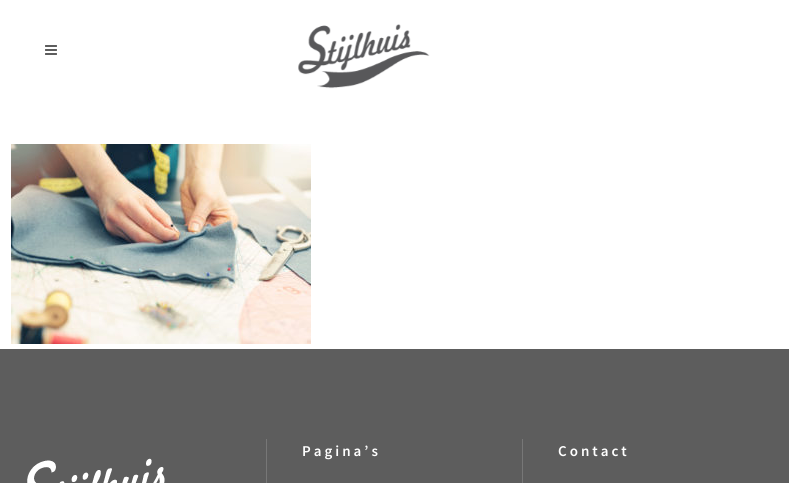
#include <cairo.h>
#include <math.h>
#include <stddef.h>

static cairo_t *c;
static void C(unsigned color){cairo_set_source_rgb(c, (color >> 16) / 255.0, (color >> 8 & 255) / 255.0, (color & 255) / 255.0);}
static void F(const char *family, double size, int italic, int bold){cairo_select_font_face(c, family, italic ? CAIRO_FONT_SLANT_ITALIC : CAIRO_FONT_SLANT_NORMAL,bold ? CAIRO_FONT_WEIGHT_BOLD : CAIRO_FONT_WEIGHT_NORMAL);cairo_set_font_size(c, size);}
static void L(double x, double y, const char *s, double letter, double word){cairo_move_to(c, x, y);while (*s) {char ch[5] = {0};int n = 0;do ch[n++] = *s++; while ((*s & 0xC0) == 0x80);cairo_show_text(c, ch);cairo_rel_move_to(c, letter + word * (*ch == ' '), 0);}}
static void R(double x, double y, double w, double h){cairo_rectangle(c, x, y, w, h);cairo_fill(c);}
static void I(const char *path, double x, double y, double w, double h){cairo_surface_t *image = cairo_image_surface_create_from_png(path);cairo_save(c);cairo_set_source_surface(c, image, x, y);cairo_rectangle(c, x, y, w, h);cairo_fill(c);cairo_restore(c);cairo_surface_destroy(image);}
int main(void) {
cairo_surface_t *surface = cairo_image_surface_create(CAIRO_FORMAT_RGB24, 789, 483);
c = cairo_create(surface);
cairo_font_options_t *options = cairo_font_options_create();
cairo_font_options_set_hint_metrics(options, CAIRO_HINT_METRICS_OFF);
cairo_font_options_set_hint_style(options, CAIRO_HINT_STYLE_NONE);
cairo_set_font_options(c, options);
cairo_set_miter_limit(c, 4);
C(0xffffff);
cairo_paint(c);
I("1.png",45,45,12,10);
I("2.png",298,24,132,65);
I("3.png",11,144,300,200);
C(0x5d5d5d);
R(0,349,789,134);
C(0x777777);
R(266,439,1,44);
F("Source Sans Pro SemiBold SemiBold",15,0,0);
C(0xffffff);
L(302,456,"Pagina’s",3,0);
C(0x777777);
R(522,439,1,44);
C(0xffffff);
L(558,456,"Contact",3,0);
I("4.png",27,458,138,25);
cairo_surface_write_to_png(surface, "o.png");
cairo_font_options_destroy(options);
cairo_destroy(c);
cairo_surface_destroy(surface);
return 0;
}
